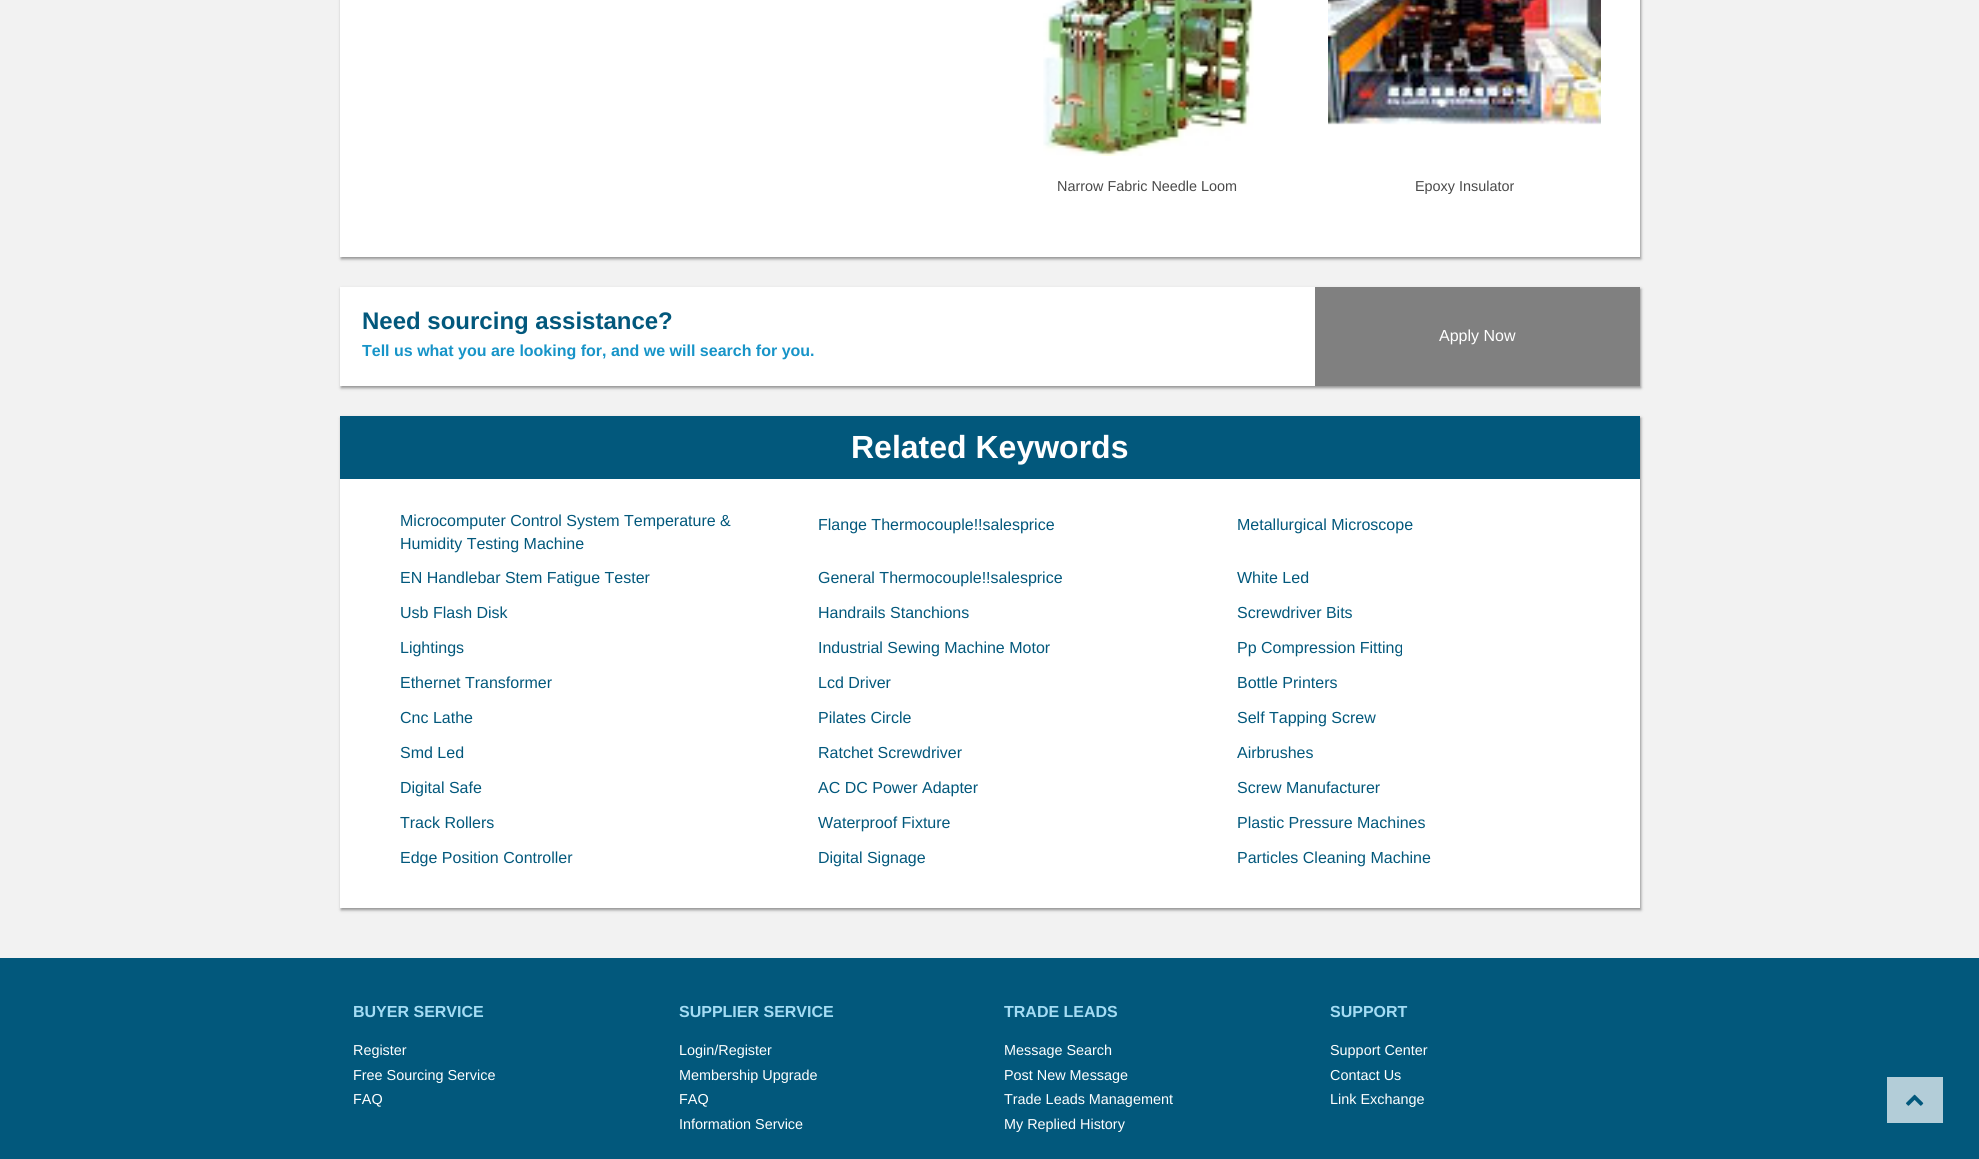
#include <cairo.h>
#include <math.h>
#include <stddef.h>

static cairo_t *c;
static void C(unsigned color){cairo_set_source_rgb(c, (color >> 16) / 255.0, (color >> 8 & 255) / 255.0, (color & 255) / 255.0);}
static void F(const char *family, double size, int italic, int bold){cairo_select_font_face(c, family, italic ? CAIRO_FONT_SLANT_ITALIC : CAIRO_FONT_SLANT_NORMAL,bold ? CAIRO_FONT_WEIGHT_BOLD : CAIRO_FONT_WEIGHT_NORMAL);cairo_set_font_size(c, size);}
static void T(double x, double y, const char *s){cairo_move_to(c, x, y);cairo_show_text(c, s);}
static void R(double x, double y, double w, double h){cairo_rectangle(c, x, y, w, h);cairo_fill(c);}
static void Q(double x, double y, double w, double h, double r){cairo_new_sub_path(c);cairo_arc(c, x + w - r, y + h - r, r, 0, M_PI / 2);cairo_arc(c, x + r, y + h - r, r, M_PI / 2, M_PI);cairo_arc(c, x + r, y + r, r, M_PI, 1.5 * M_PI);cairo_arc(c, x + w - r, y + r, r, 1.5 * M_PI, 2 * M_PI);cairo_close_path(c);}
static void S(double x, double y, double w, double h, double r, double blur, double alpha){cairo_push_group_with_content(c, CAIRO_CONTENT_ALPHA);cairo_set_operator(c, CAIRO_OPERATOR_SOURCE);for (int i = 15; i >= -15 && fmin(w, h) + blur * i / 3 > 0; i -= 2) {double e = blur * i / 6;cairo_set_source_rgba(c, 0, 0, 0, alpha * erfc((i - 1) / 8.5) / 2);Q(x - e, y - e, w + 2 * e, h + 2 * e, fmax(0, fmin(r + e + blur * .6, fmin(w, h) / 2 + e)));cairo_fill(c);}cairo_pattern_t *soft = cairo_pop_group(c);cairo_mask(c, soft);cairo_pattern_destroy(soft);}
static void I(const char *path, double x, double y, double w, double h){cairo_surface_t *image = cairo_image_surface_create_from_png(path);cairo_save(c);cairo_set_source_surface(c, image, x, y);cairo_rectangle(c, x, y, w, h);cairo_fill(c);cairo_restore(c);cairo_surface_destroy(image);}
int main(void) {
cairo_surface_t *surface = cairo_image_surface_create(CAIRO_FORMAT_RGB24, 1979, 1159);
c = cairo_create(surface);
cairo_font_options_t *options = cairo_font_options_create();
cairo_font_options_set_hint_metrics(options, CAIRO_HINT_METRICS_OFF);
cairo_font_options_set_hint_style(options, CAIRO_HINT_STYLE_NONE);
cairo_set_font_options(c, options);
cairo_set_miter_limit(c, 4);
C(0xf2f2f2);
cairo_paint(c);
C(0x000000);
S(341,-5,1300,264,0,1.5,.4);
C(0xffffff);
R(340,0,1300,257);
I("1.png",1043,0,211,156);
F("Liberation Sans",14.4,0,0);
C(0x4a4a4a);
T(1057,191,"Narrow Fabric Needle Loom");
I("2.png",1328,0,273,125);
T(1415,191,"Epoxy Insulator");
C(0x000000);
S(341,289,1300,99,0,1.5,.4);
C(0xffffff);
R(340,287,975,99);
F("Liberation Sans",24,0,1);
C(0x02587c);
T(362,329,"Need sourcing assistance?");
F("Liberation Sans",16,0,1);
C(0x1794c8);
T(362,356,"Tell us what you are looking for, and we will search for you.");
C(0x808080);
R(1315,287,325,99);
F("Liberation Sans",16,0,0);
C(0xffffff);
T(1439,341,"Apply Now");
C(0x000000);
S(341,418,1300,492,0,1.5,.4);
C(0xffffff);
R(340,479,1300,429);
C(0x02587c);
R(340,416,1300,63);
F("Liberation Sans",32,0,1);
C(0xffffff);
T(851,458,"Related Keywords");
F("Liberation Sans",16,0,0);
C(0x02587c);
T(400,526,"Microcomputer Control System Temperature &");
T(400,549,"Humidity Testing Machine");
T(818,530,"Flange Thermocouple!!salesprice");
T(1237,530,"Metallurgical Microscope");
T(400,583,"EN Handlebar Stem Fatigue Tester");
T(818,583,"General Thermocouple!!salesprice");
T(1237,583,"White Led");
T(400,618,"Usb Flash Disk");
T(818,618,"Handrails Stanchions");
T(1237,618,"Screwdriver Bits");
T(400,653,"Lightings");
T(818,653,"Industrial Sewing Machine Motor");
T(1237,653,"Pp Compression Fitting");
T(400,688,"Ethernet Transformer");
T(818,688,"Lcd Driver");
T(1237,688,"Bottle Printers");
T(400,723,"Cnc Lathe");
T(818,723,"Pilates Circle");
T(1237,723,"Self Tapping Screw");
T(400,758,"Smd Led");
T(818,758,"Ratchet Screwdriver");
T(1237,758,"Airbrushes");
T(400,793,"Digital Safe");
T(818,793,"AC DC Power Adapter");
T(1237,793,"Screw Manufacturer");
T(400,828,"Track Rollers");
T(818,828,"Waterproof Fixture");
T(1237,828,"Plastic Pressure Machines");
T(400,863,"Edge Position Controller");
T(818,863,"Digital Signage");
T(1237,863,"Particles Cleaning Machine");
R(0,958,1979,201);
F("Liberation Sans",16,0,1);
C(0xa4dcf4);
T(353,1017,"BUYER SERVICE");
F("Liberation Sans",14.4,0,0);
C(0xffffff);
T(353,1055,"Register");
T(353,1080,"Free Sourcing Service");
T(353,1104,"FAQ");
F("Liberation Sans",16,0,1);
C(0xa4dcf4);
T(679,1017,"SUPPLIER SERVICE");
F("Liberation Sans",14.4,0,0);
C(0xffffff);
T(679,1055,"Login/Register");
T(679,1080,"Membership Upgrade");
T(679,1104,"FAQ");
T(679,1129,"Information Service");
F("Liberation Sans",16,0,1);
C(0xa4dcf4);
T(1004,1017,"TRADE LEADS");
F("Liberation Sans",14.4,0,0);
C(0xffffff);
T(1004,1055,"Message Search");
T(1004,1080,"Post New Message");
T(1004,1104,"Trade Leads Management");
T(1004,1129,"My Replied History");
F("Liberation Sans",16,0,1);
C(0xa4dcf4);
T(1330,1017,"SUPPORT");
F("Liberation Sans",14.4,0,0);
C(0xffffff);
T(1330,1055,"Support Center");
T(1330,1080,"Contact Us");
T(1330,1104,"Link Exchange");
C(0xb3cdd8);
R(1887,1077,56,46);
I("3.png",1906,1094,18,12);
cairo_surface_write_to_png(surface, "o.png");
cairo_font_options_destroy(options);
cairo_destroy(c);
cairo_surface_destroy(surface);
return 0;
}
